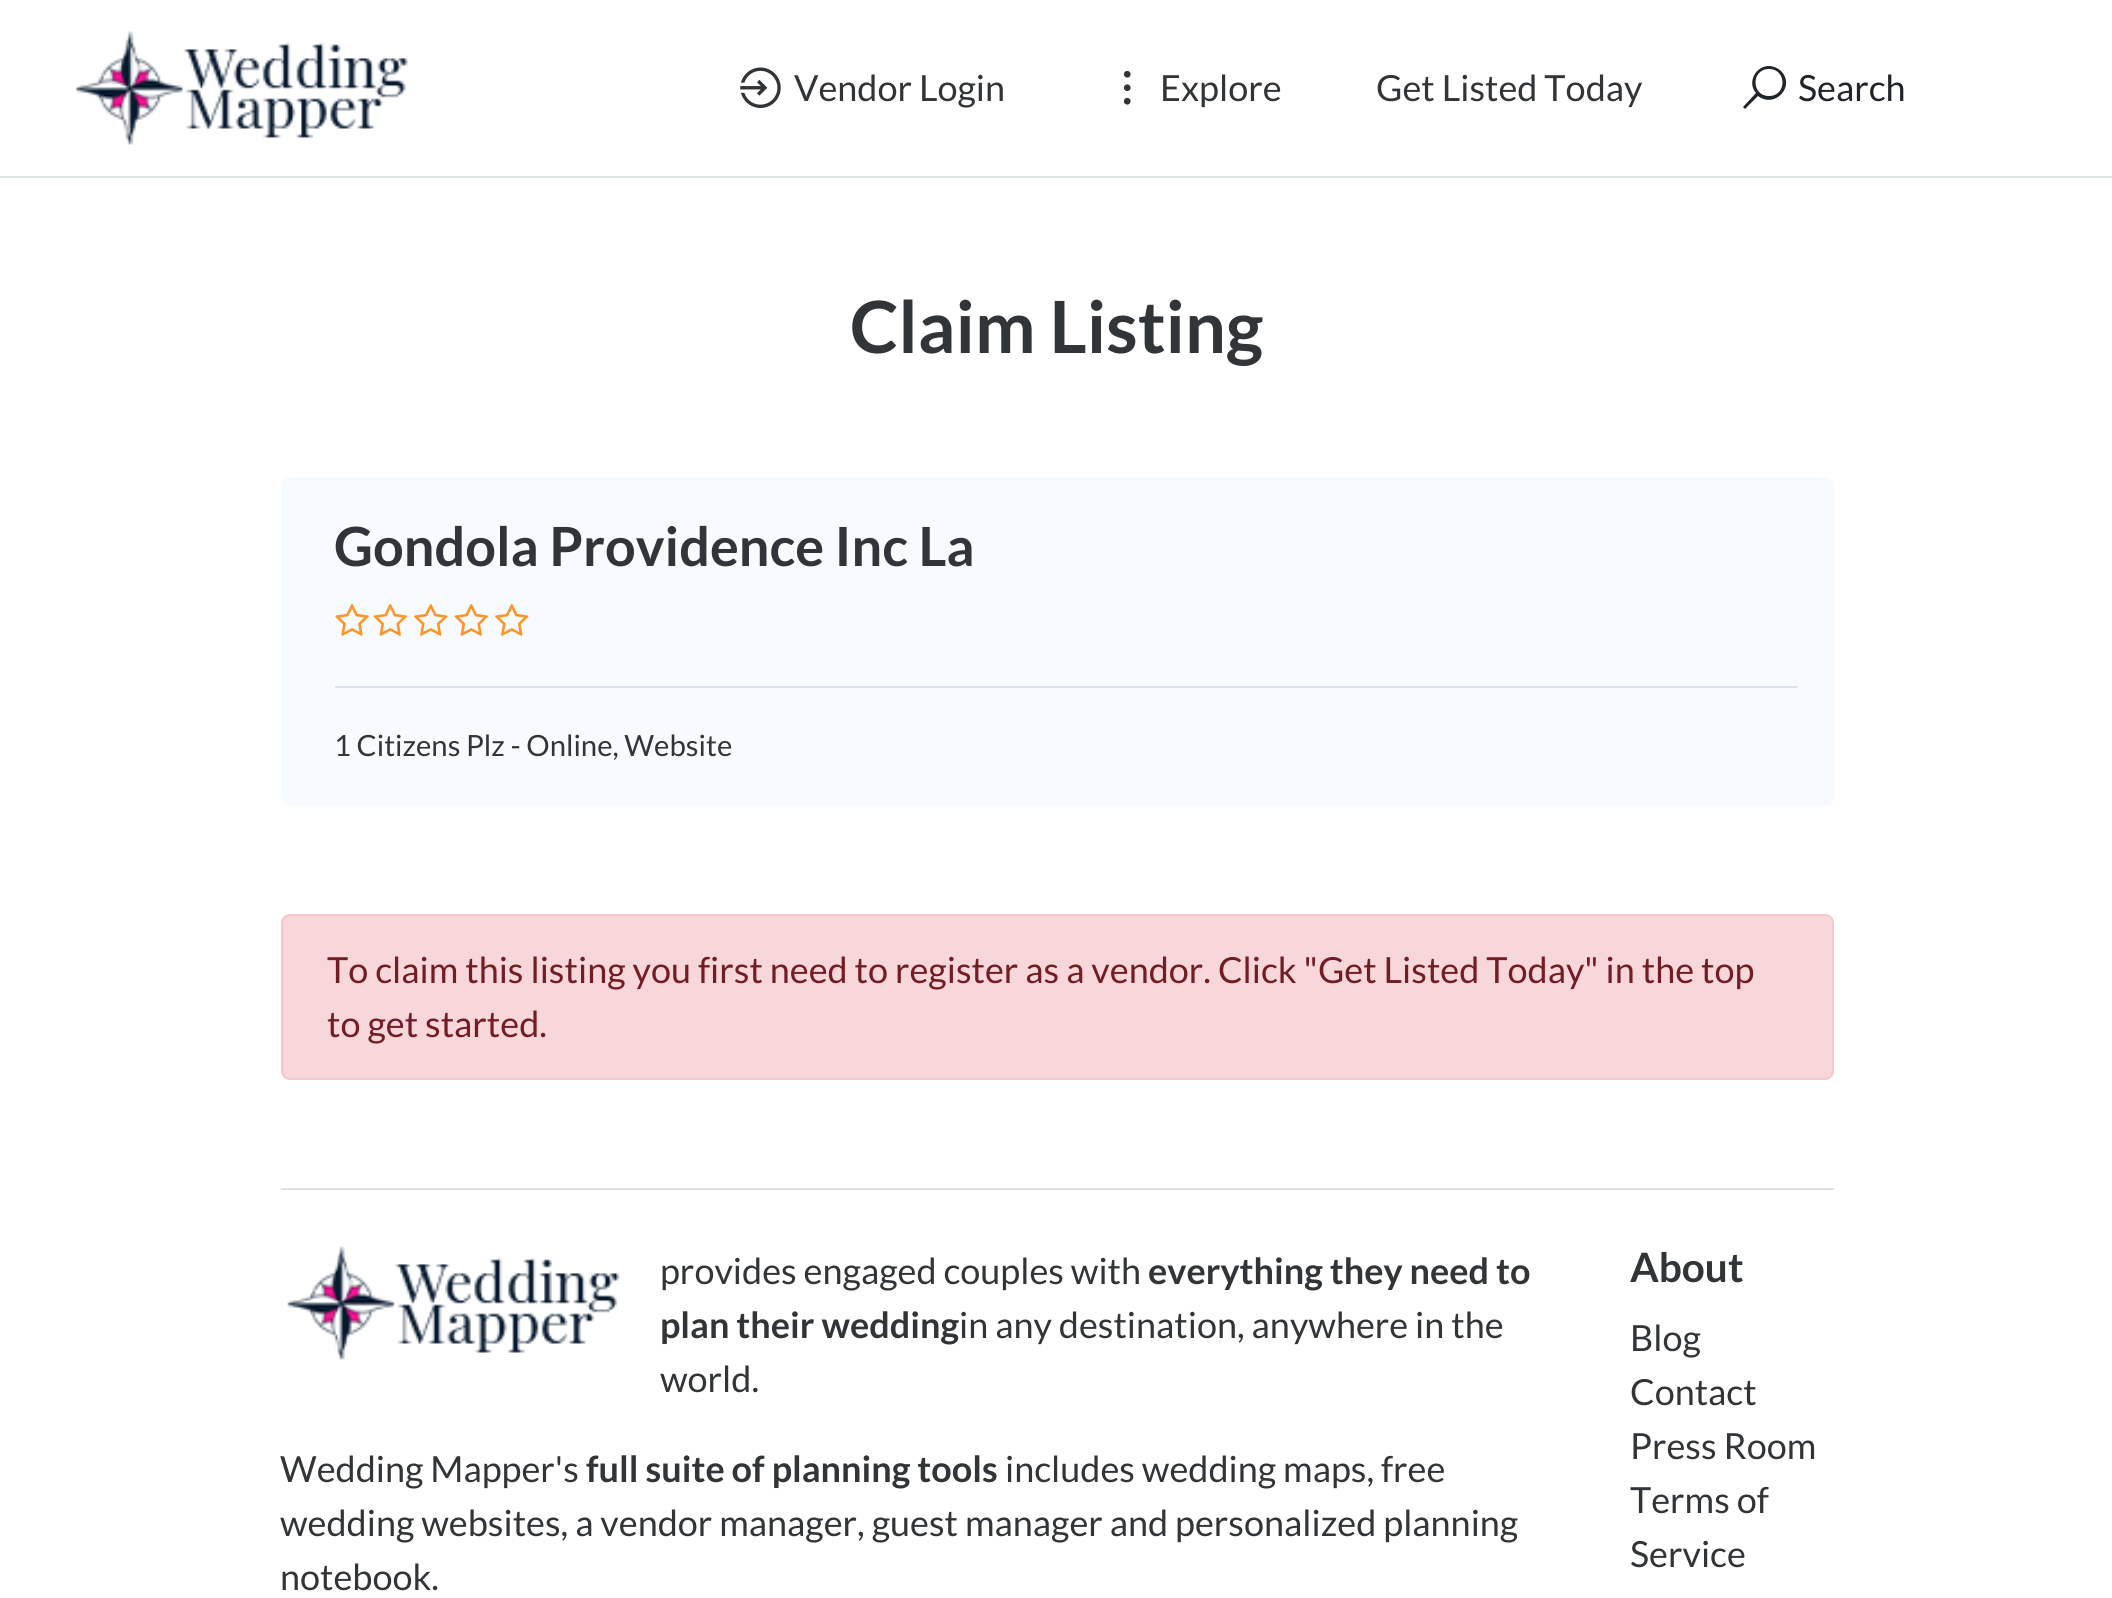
#include <cairo.h>
#include <math.h>
#include <stddef.h>

static cairo_t *c;
static void C(unsigned color){cairo_set_source_rgb(c, (color >> 16) / 255.0, (color >> 8 & 255) / 255.0, (color & 255) / 255.0);}
static void F(const char *family, double size, int italic, int bold){cairo_select_font_face(c, family, italic ? CAIRO_FONT_SLANT_ITALIC : CAIRO_FONT_SLANT_NORMAL,bold ? CAIRO_FONT_WEIGHT_BOLD : CAIRO_FONT_WEIGHT_NORMAL);cairo_set_font_size(c, size);}
static void T(double x, double y, const char *s){cairo_move_to(c, x, y);cairo_show_text(c, s);}
static void R(double x, double y, double w, double h){cairo_rectangle(c, x, y, w, h);cairo_fill(c);}
static void Q(double x, double y, double w, double h, double r){cairo_new_sub_path(c);cairo_arc(c, x + w - r, y + h - r, r, 0, M_PI / 2);cairo_arc(c, x + r, y + h - r, r, M_PI / 2, M_PI);cairo_arc(c, x + r, y + r, r, M_PI, 1.5 * M_PI);cairo_arc(c, x + w - r, y + r, r, 1.5 * M_PI, 2 * M_PI);cairo_close_path(c);}
static void I(const char *path, double x, double y, double w, double h){cairo_surface_t *image = cairo_image_surface_create_from_png(path);cairo_save(c);cairo_set_source_surface(c, image, x, y);cairo_rectangle(c, x, y, w, h);cairo_fill(c);cairo_restore(c);cairo_surface_destroy(image);}
int main(void) {
cairo_surface_t *surface = cairo_image_surface_create(CAIRO_FORMAT_RGB24, 2112, 1598);
c = cairo_create(surface);
cairo_font_options_t *options = cairo_font_options_create();
cairo_font_options_set_hint_metrics(options, CAIRO_HINT_METRICS_OFF);
cairo_font_options_set_hint_style(options, CAIRO_HINT_STYLE_NONE);
cairo_set_font_options(c, options);
cairo_set_miter_limit(c, 4);
C(0xffffff);
cairo_paint(c);
C(0xdee3e5);
R(0,176,2112,2);
I("1.png",76,31,332,114);
I("2.png",740,67,41,41);
F("Lato",36,0,0);
C(0x323537);
T(794,101,"Vendor Login");
I("3.png",1123,70,8,35);
T(1160,101,"Explore");
T(1376,101,"Get Listed Today");
C(0x212529);
cairo_new_path(c);
cairo_move_to(c,1769,66);
cairo_curve_to(c,1755,66,1747,83,1756,93);
cairo_line_to(c,1743,107);
cairo_line_to(c,1745,109);
cairo_line_to(c,1758,96);
cairo_curve_to(c,1775,109,1796,86,1781,71);
cairo_curve_to(c,1778,68,1773,66,1769,66);
cairo_close_path(c);
cairo_move_to(c,1769,69);
cairo_curve_to(c,1787,69,1787,96,1769,96);
cairo_curve_to(c,1751,96,1751,69,1769,69);
cairo_close_path(c);
cairo_fill(c);
T(1798,101,"Search");
F("Lato",72,0,1);
C(0x323537);
T(850,353,"Claim Listing");
C(0xf7fbff);
Q(281,477,1553,329,9);
cairo_fill(c);
F("Lato",54,0,1);
C(0x323537);
T(334,566,"Gondola Providence Inc La");
I("4.png",335,604,34,32);
I("5.png",373,604,34,32);
I("6.png",414,604,34,32);
I("5.png",454,604,34,32);
I("6.png",495,604,34,32);
C(0xdee3e5);
R(335,686,1463,2);
F("Lato",29.25,0,0);
C(0x323537);
T(334,756,"1 Citizens Plz - Online, Website");
C(0xf8d7da);
Q(282,915,1551,164,8);
cairo_fill_preserve(c);
C(0xf5c6cb);
cairo_stroke(c);
F("Lato",36,0,0);
C(0x721c24);
T(327,983,"To claim this listing you first need to register as a vendor. Click \"Get Listed Today\" in the top");
T(327,1037,"to get started.");
C(0xdee2e6);
R(281,1188,1553,2);
I("7.png",287,1246,333,114);
C(0x323537);
T(660,1284,"provides engaged couples with");
F("Lato",36,0,1);
T(1148,1284,"everything they need to");
T(660,1338,"plan their wedding");
F("Lato",36,0,0);
T(959,1338,"in any destination, anywhere in the");
T(660,1392,"world.");
T(280,1482,"Wedding Mapper's");
F("Lato",36,0,1);
T(586,1482,"full suite of planning tools");
F("Lato",36,0,0);
T(1005,1482,"includes wedding maps, free");
T(280,1536,"wedding websites, a vendor manager, guest manager and personalized planning");
T(280,1590,"notebook.");
F("Lato",40.5,0,1);
T(1630,1282,"About");
F("Lato",36,0,0);
T(1630,1351,"Blog");
T(1630,1405,"Contact");
T(1630,1459,"Press Room");
T(1630,1513,"Terms of");
T(1630,1567,"Service");
cairo_surface_write_to_png(surface, "o.png");
cairo_font_options_destroy(options);
cairo_destroy(c);
cairo_surface_destroy(surface);
return 0;
}
